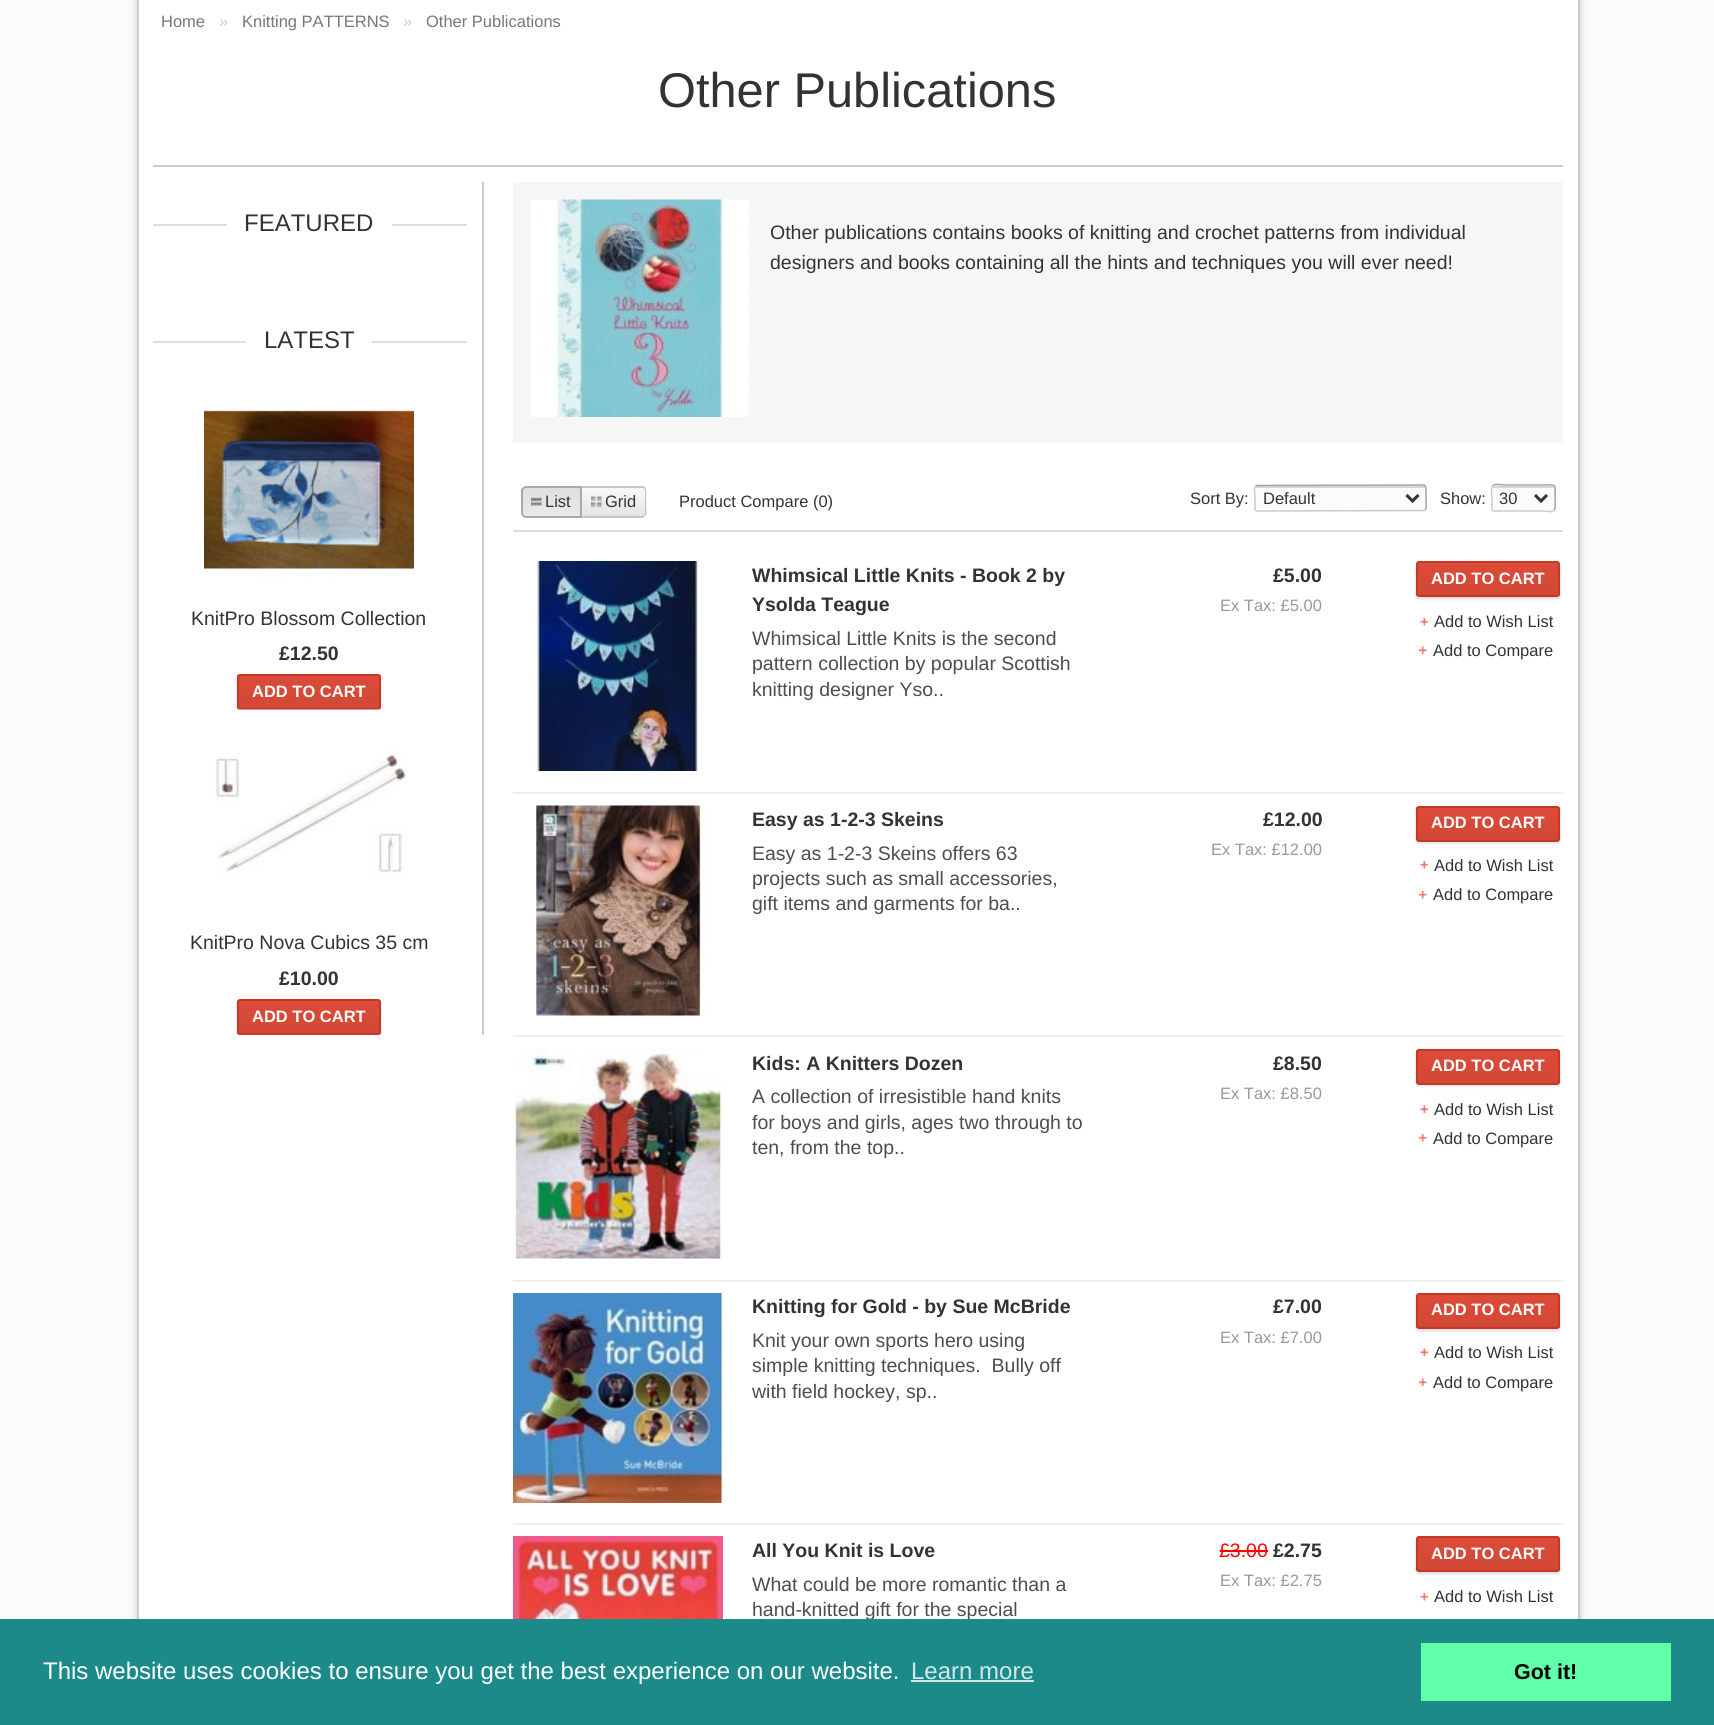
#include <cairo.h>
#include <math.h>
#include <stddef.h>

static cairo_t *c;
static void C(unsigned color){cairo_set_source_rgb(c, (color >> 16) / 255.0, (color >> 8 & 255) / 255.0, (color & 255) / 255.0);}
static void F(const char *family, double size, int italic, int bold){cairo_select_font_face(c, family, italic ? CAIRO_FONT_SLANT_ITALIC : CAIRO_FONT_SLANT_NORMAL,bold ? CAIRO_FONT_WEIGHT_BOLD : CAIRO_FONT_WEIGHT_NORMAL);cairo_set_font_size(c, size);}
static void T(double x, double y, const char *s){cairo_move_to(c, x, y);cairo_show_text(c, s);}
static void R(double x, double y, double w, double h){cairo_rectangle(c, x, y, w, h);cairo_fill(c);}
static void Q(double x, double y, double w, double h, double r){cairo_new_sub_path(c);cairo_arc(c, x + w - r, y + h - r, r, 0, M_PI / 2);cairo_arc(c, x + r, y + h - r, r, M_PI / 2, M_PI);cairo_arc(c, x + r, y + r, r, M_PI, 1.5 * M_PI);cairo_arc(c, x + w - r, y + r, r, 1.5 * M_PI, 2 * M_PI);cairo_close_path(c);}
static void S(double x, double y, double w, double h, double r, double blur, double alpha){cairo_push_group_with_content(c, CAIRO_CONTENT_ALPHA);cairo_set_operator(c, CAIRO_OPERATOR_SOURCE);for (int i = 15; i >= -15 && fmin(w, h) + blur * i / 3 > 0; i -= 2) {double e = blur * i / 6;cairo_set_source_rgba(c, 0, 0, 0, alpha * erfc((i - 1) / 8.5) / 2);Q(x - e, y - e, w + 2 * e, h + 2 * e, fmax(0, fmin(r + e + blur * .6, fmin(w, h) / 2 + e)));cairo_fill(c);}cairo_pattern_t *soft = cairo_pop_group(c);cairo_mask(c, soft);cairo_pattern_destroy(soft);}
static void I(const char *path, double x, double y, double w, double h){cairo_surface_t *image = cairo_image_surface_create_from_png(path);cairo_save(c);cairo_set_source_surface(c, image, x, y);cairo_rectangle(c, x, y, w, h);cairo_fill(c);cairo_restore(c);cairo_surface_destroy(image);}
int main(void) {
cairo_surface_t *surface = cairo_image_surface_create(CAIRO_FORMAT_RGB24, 1714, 1725);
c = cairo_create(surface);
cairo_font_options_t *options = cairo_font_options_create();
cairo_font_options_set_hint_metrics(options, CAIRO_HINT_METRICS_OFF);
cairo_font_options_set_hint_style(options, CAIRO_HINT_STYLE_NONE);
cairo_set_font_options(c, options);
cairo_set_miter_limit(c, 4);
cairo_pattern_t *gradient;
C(0xfbfbfb);
cairo_paint(c);
C(0x000000);
S(137,-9,1443,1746,0,4,.2);
C(0xffffff);
R(139,0,1439,1619);
C(0xcccccc);
R(1578,0,2,1619);
R(137,0,2,1619);
F("Liberation Sans",16.5,0,0);
C(0x777777);
T(161,27,"Home");
C(0xcccccc);
T(219,27,"»");
C(0x777777);
T(242,27,"Knitting PATTERNS");
C(0xcccccc);
T(403,27,"»");
C(0x777777);
T(426,27,"Other Publications");
C(0xcccccc);
R(153,165,1410,2);
F("Liberation Sans",48.75,0,0);
C(0x333333);
T(658,107,"Other Publications");
C(0xcccccc);
R(482,182,2,853);
C(0xdddddd);
R(153,224,314,2);
C(0xffffff);
R(227,224,165,2);
F("Liberation Sans",24,0,0);
C(0x333333);
T(244,231,"FEATURED");
C(0xdddddd);
R(153,341,314,2);
C(0xffffff);
R(246,341,126,2);
C(0x333333);
T(264,348,"LATEST");
I("1.png",204,410,210,167);
F("Liberation Sans",19.5,0,0);
T(191,625,"KnitPro Blossom Collection");
F("Liberation Sans",19.5,0,1);
T(279,660,"£12.50");
C(0x000000);
S(237,675,144,36,3,1.5,.15);
cairo_save(c);
Q(237,674,144,36,3);
cairo_clip(c);
gradient = cairo_pattern_create_linear(309,675,309,708);
cairo_pattern_add_color_stop_rgba(gradient,0,0.867,0.294,0.224,1);
cairo_pattern_add_color_stop_rgba(gradient,1,0.82,0.282,0.212,1);
cairo_set_source(c,gradient);
cairo_pattern_destroy(gradient);
R(237,675,144,33);
cairo_restore(c);
Q(238,675,142,34,2);
C(0xc53727);
cairo_stroke(c);
F("Liberation Sans",16.5,0,1);
C(0xffffff);
T(252,697,"ADD TO CART");
I("2.png",215,709,193,168);
F("Liberation Sans",19.5,0,0);
C(0x333333);
T(190,949,"KnitPro Nova Cubics 35 cm");
F("Liberation Sans",19.5,0,1);
T(279,985,"£10.00");
cairo_save(c);
cairo_rectangle(c,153,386,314,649);
cairo_clip(c);
C(0x000000);
S(237,1001,144,36,3,1.5,.15);
cairo_restore(c);
cairo_save(c);
Q(237,999,144,36,3);
cairo_clip(c);
gradient = cairo_pattern_create_linear(309,1001,309,1034);
cairo_pattern_add_color_stop_rgba(gradient,0,0.867,0.294,0.224,1);
cairo_pattern_add_color_stop_rgba(gradient,1,0.82,0.282,0.212,1);
cairo_set_source(c,gradient);
cairo_pattern_destroy(gradient);
R(237,1001,144,33);
cairo_restore(c);
Q(238,1000,142,34,2);
C(0xc53727);
cairo_stroke(c);
F("Liberation Sans",16.5,0,1);
C(0xffffff);
T(252,1022,"ADD TO CART");
C(0xf6f6f6);
R(513,182,1050,261);
I("3.png",531,199,218,218);
F("Liberation Sans",19.5,0,0);
C(0x333333);
T(770,239,"Other publications contains books of knitting and crochet patterns from individual");
T(770,269,"designers and books containing all the hints and techniques you will ever need!");
C(0xdddddd);
R(513,530,1050,2);
cairo_save(c);
cairo_new_path(c);
cairo_move_to(c,526,486);
cairo_line_to(c,582,486);
cairo_line_to(c,582,518);
cairo_line_to(c,526,518);
cairo_curve_to(c,523,518,521,516,521,513);
cairo_line_to(c,521,491);
cairo_curve_to(c,521,488,523,486,526,486);
cairo_close_path(c);
cairo_clip(c);
gradient = cairo_pattern_create_linear(551,488,551,516);
cairo_pattern_add_color_stop_rgba(gradient,0,0.875,0.875,0.875,1);
cairo_pattern_add_color_stop_rgba(gradient,1,0.914,0.914,0.914,1);
cairo_set_source(c,gradient);
cairo_pattern_destroy(gradient);
R(521,488,59,28);
cairo_restore(c);
cairo_new_path(c);
cairo_move_to(c,526,487);
cairo_line_to(c,581,487);
cairo_line_to(c,581,517);
cairo_line_to(c,526,517);
cairo_curve_to(c,524,517,522,515,522,513);
cairo_line_to(c,522,491);
cairo_curve_to(c,522,489,524,487,526,487);
cairo_close_path(c);
C(0xaaaaaa);
cairo_stroke(c);
I("4.png",531,497,11,9);
F("Liberation Sans",16.5,0,0);
C(0x333333);
T(545,507,"List");
cairo_save(c);
cairo_new_path(c);
cairo_move_to(c,582,486);
cairo_line_to(c,642,486);
cairo_curve_to(c,645,486,647,488,647,491);
cairo_line_to(c,647,513);
cairo_curve_to(c,647,516,645,518,642,518);
cairo_line_to(c,582,518);
cairo_close_path(c);
cairo_clip(c);
gradient = cairo_pattern_create_linear(582,488,582,459);
cairo_pattern_add_color_stop_rgba(gradient,0,0.894,0.894,0.894,1);
cairo_pattern_add_color_stop_rgba(gradient,1,0.976,0.976,0.976,1);
cairo_set_source(c,gradient);
cairo_pattern_destroy(gradient);
R(642,486,5,2);
gradient = cairo_pattern_create_linear(582,516,582,488);
cairo_pattern_add_color_stop_rgba(gradient,0,0.894,0.894,0.894,1);
cairo_pattern_add_color_stop_rgba(gradient,1,0.976,0.976,0.976,1);
cairo_set_source(c,gradient);
cairo_pattern_destroy(gradient);
R(582,488,65,28);
gradient = cairo_pattern_create_linear(582,545,582,516);
cairo_pattern_add_color_stop_rgba(gradient,0,0.894,0.894,0.894,1);
cairo_pattern_add_color_stop_rgba(gradient,1,0.976,0.976,0.976,1);
cairo_set_source(c,gradient);
cairo_pattern_destroy(gradient);
R(642,516,5,2);
cairo_restore(c);
C(0xc6c6c6);
cairo_set_fill_rule(c,CAIRO_FILL_RULE_EVEN_ODD);
cairo_new_path(c);
cairo_move_to(c,582,486);
cairo_line_to(c,642,486);
cairo_curve_to(c,644,486,646,488,646,490);
cairo_line_to(c,646,513);
cairo_curve_to(c,646,515,644,518,642,518);
cairo_line_to(c,582,518);
cairo_close_path(c);
cairo_move_to(c,582,488);
cairo_line_to(c,642,488);
cairo_curve_to(c,644,488,645,489,645,490);
cairo_line_to(c,645,513);
cairo_curve_to(c,645,515,644,516,642,516);
cairo_line_to(c,582,516);
cairo_close_path(c);
cairo_fill(c);
I("5.png",591,496,11,12);
C(0x333333);
T(605,507,"Grid");
T(679,507,"Product Compare (0)");
T(1190,504,"Sort By:");
C(0xfbfbfb);
Q(1254,485,173,27,3);
cairo_fill(c);
C(0xd6d6d6);
cairo_set_fill_rule(c,CAIRO_FILL_RULE_WINDING);
cairo_new_path(c);
cairo_move_to(c,1257,488);
cairo_line_to(c,1424,488);
cairo_line_to(c,1425,489);
cairo_curve_to(c,1425,488,1425,486,1424,486);
cairo_line_to(c,1257,486);
cairo_curve_to(c,1256,486,1256,488,1256,489);
cairo_curve_to(c,1256,488,1256,488,1257,488);
cairo_close_path(c);
cairo_fill(c);
cairo_new_path(c);
cairo_move_to(c,1255.5,486);
cairo_line_to(c,1257,485.5);
cairo_line_to(c,1423.5,485);
cairo_curve_to(c,1426.5,485.5,1426,489.5,1426,491);
cairo_line_to(c,1426,498);
cairo_curve_to(c,1426,500.5,1427,508.5,1425,510);
C(0xa3a3a3);
cairo_set_line_width(c,1.5);
cairo_stroke(c);
cairo_new_path(c);
cairo_move_to(c,1425,510);
cairo_line_to(c,1423.5,510.5);
cairo_line_to(c,1257,511);
cairo_curve_to(c,1254,510.5,1255,506.5,1255,505);
cairo_line_to(c,1255,498);
cairo_curve_to(c,1255,495.5,1253.5,487.5,1255.5,486);
C(0xcccccc);
cairo_stroke(c);
cairo_new_path(c);
cairo_move_to(c,1406.5,495);
cairo_line_to(c,1412.5,501);
cairo_line_to(c,1418.5,495);
C(0x333333);
cairo_set_line_width(c,3);
cairo_stroke(c);
T(1263,504,"Default");
T(1440,504,"Show:");
C(0xfbfbfb);
Q(1491,485,65,27,3);
cairo_fill(c);
C(0xd6d6d6);
cairo_new_path(c);
cairo_move_to(c,1494,488);
cairo_line_to(c,1552,488);
cairo_curve_to(c,1553,488,1554,488,1554,489);
cairo_line_to(c,1554,488);
cairo_curve_to(c,1554,487,1553,486,1552,486);
cairo_curve_to(c,1546,486,1494,486,1493,486);
cairo_line_to(c,1493,488);
cairo_close_path(c);
cairo_fill(c);
cairo_new_path(c);
cairo_move_to(c,1492.5,486);
cairo_curve_to(c,1495,483,1500,485,1504,485);
cairo_line_to(c,1543,485);
cairo_curve_to(c,1557.5,485,1555,483,1555,498);
cairo_curve_to(c,1555,500.5,1556,508.5,1554,510);
C(0xa3a3a3);
cairo_set_line_width(c,1.5);
cairo_stroke(c);
cairo_new_path(c);
cairo_move_to(c,1554,510);
cairo_curve_to(c,1551.5,513,1546.5,511,1543,511);
cairo_line_to(c,1504,511);
cairo_curve_to(c,1489,511,1492,513,1492,498);
cairo_curve_to(c,1492,495.5,1490.5,487.5,1492.5,486);
C(0xcccccc);
cairo_stroke(c);
cairo_new_path(c);
cairo_move_to(c,1535,495);
cairo_line_to(c,1541,501);
cairo_line_to(c,1547,495);
C(0x333333);
cairo_set_line_width(c,3);
cairo_stroke(c);
T(1499,504,"30");
I("6.png",536,561,163,210);
F("Liberation Sans",19.5,0,1);
T(752,582,"Whimsical Little Knits - Book 2 by");
T(752,611,"Ysolda Teague");
F("Liberation Sans",19.5,0,0);
C(0x4d4d4d);
T(752,645,"Whimsical Little Knits is the second");
T(752,670,"pattern collection by popular Scottish");
T(752,696,"knitting designer Yso..");
F("Liberation Sans",19.5,0,1);
C(0x333333);
T(1273,582,"£5.00");
F("Liberation Sans",16.5,0,0);
C(0x999999);
T(1220,611,"Ex Tax: £5.00");
C(0x000000);
S(1416,563,144,36,3,1.5,.15);
cairo_save(c);
Q(1416,561,144,36,3);
cairo_clip(c);
gradient = cairo_pattern_create_linear(1488,563,1488,596);
cairo_pattern_add_color_stop_rgba(gradient,0,0.867,0.294,0.224,1);
cairo_pattern_add_color_stop_rgba(gradient,1,0.82,0.282,0.212,1);
cairo_set_source(c,gradient);
cairo_pattern_destroy(gradient);
R(1416,563,144,33);
cairo_restore(c);
Q(1417,562,142,34,2);
C(0xc53727);
cairo_set_line_width(c,2);
cairo_stroke(c);
F("Liberation Sans",16.5,0,1);
C(0xffffff);
T(1431,584,"ADD TO CART");
I("7.png",1420,618,8,8);
F("Liberation Sans",16.5,0,0);
C(0x333333);
T(1434,627,"Add to Wish List");
I("8.png",1419,646,8,8);
T(1433,656,"Add to Compare");
C(0xeeeeee);
R(513,792,1050,2);
I("9.png",535,805,172,211);
F("Liberation Sans",19.5,0,1);
C(0x333333);
T(752,826,"Easy as 1-2-3 Skeins");
F("Liberation Sans",19.5,0,0);
C(0x4d4d4d);
T(752,860,"Easy as 1-2-3 Skeins offers 63");
T(752,885,"projects such as small accessories,");
T(752,910,"gift items and garments for ba..");
F("Liberation Sans",19.5,0,1);
C(0x333333);
T(1263,826,"£12.00");
F("Liberation Sans",16.5,0,0);
C(0x999999);
T(1211,855,"Ex Tax: £12.00");
C(0x000000);
S(1416,807,144,36,3,1.5,.15);
cairo_save(c);
Q(1416,806,144,36,3);
cairo_clip(c);
gradient = cairo_pattern_create_linear(1488,807,1488,840);
cairo_pattern_add_color_stop_rgba(gradient,0,0.867,0.294,0.224,1);
cairo_pattern_add_color_stop_rgba(gradient,1,0.82,0.282,0.212,1);
cairo_set_source(c,gradient);
cairo_pattern_destroy(gradient);
R(1416,807,144,33);
cairo_restore(c);
Q(1417,807,142,34,2);
C(0xc53727);
cairo_stroke(c);
F("Liberation Sans",16.5,0,1);
C(0xffffff);
T(1431,828,"ADD TO CART");
I("7.png",1420,861,8,8);
F("Liberation Sans",16.5,0,0);
C(0x333333);
T(1434,871,"Add to Wish List");
I("10.png",1419,891,8,8);
T(1433,900,"Add to Compare");
C(0xeeeeee);
R(513,1035,1050,2);
I("11.png",513,1048,210,211);
F("Liberation Sans",19.5,0,1);
C(0x333333);
T(752,1070,"Kids: A Knitters Dozen");
F("Liberation Sans",19.5,0,0);
C(0x4d4d4d);
T(752,1103,"A collection of irresistible hand knits");
T(752,1129,"for boys and girls, ages two through to");
T(752,1154,"ten, from the top..");
F("Liberation Sans",19.5,0,1);
C(0x333333);
T(1273,1070,"£8.50");
F("Liberation Sans",16.5,0,0);
C(0x999999);
T(1220,1099,"Ex Tax: £8.50");
C(0x000000);
S(1416,1050,144,36,3,1.5,.15);
cairo_save(c);
Q(1416,1049,144,36,3);
cairo_clip(c);
gradient = cairo_pattern_create_linear(1488,1050,1488,1083);
cairo_pattern_add_color_stop_rgba(gradient,0,0.867,0.294,0.224,1);
cairo_pattern_add_color_stop_rgba(gradient,1,0.82,0.282,0.212,1);
cairo_set_source(c,gradient);
cairo_pattern_destroy(gradient);
R(1416,1050,144,33);
cairo_restore(c);
Q(1417,1050,142,34,2);
C(0xc53727);
cairo_stroke(c);
F("Liberation Sans",16.5,0,1);
C(0xffffff);
T(1431,1071,"ADD TO CART");
I("12.png",1420,1105,8,8);
F("Liberation Sans",16.5,0,0);
C(0x333333);
T(1434,1115,"Add to Wish List");
I("10.png",1419,1134,8,8);
T(1433,1144,"Add to Compare");
C(0xeeeeee);
R(513,1280,1050,2);
I("13.png",513,1293,210,210);
F("Liberation Sans",19.5,0,1);
C(0x333333);
T(752,1313,"Knitting for Gold - by Sue McBride");
F("Liberation Sans",19.5,0,0);
C(0x4d4d4d);
T(752,1347,"Knit your own sports hero using");
T(752,1372,"simple knitting techniques.  Bully off");
T(752,1398,"with field hockey, sp..");
F("Liberation Sans",19.5,0,1);
C(0x333333);
T(1273,1313,"£7.00");
F("Liberation Sans",16.5,0,0);
C(0x999999);
T(1220,1343,"Ex Tax: £7.00");
C(0x000000);
S(1416,1295,144,36,3,1.5,.15);
cairo_save(c);
Q(1416,1293,144,36,3);
cairo_clip(c);
gradient = cairo_pattern_create_linear(1488,1295,1488,1328);
cairo_pattern_add_color_stop_rgba(gradient,0,0.867,0.294,0.224,1);
cairo_pattern_add_color_stop_rgba(gradient,1,0.82,0.282,0.212,1);
cairo_set_source(c,gradient);
cairo_pattern_destroy(gradient);
R(1416,1295,144,33);
cairo_restore(c);
Q(1417,1294,142,34,2);
C(0xc53727);
cairo_stroke(c);
F("Liberation Sans",16.5,0,1);
C(0xffffff);
T(1431,1315,"ADD TO CART");
I("12.png",1420,1348,8,8);
F("Liberation Sans",16.5,0,0);
C(0x333333);
T(1434,1358,"Add to Wish List");
I("8.png",1419,1378,8,8);
T(1433,1388,"Add to Compare");
C(0xeeeeee);
R(513,1523,1050,2);
I("14.png",513,1536,210,83);
F("Liberation Sans",19.5,0,1);
C(0x333333);
T(752,1557,"All You Knit is Love");
F("Liberation Sans",19.5,0,0);
C(0x4d4d4d);
T(752,1591,"What could be more romantic than a");
T(752,1616,"hand-knitted gift for the special");
C(0xff0000);
T(1219,1557,"£3.00");
R(1220,1550,48,2);
F("Liberation Sans",19.5,0,1);
C(0x333333);
T(1273,1557,"£2.75");
F("Liberation Sans",16.5,0,0);
C(0x999999);
T(1220,1586,"Ex Tax: £2.75");
C(0x000000);
S(1416,1538,144,36,3,1.5,.15);
cairo_save(c);
Q(1416,1536,144,36,3);
cairo_clip(c);
gradient = cairo_pattern_create_linear(1488,1538,1488,1571);
cairo_pattern_add_color_stop_rgba(gradient,0,0.867,0.294,0.224,1);
cairo_pattern_add_color_stop_rgba(gradient,1,0.82,0.282,0.212,1);
cairo_set_source(c,gradient);
cairo_pattern_destroy(gradient);
R(1416,1538,144,33);
cairo_restore(c);
Q(1417,1537,142,34,2);
C(0xc53727);
cairo_stroke(c);
F("Liberation Sans",16.5,0,1);
C(0xffffff);
T(1431,1559,"ADD TO CART");
I("7.png",1420,1593,8,8);
F("Liberation Sans",16.5,0,0);
C(0x333333);
T(1434,1602,"Add to Wish List");
C(0x1d8a8a);
R(0,1619,1714,106);
F("Liberation Sans",24,0,0);
C(0xffffff);
T(43,1679,"This website uses cookies to ensure you get the best experience on our website.");
C(0xd2e8e8);
T(911,1679,"Learn more");
R(911,1680,123,2);
C(0x62ffaa);
R(1421,1643,250,58);
F("Liberation Sans",21.5,0,1);
C(0x000000);
T(1514,1679,"Got it!");
cairo_surface_write_to_png(surface, "o.png");
cairo_font_options_destroy(options);
cairo_destroy(c);
cairo_surface_destroy(surface);
return 0;
}
